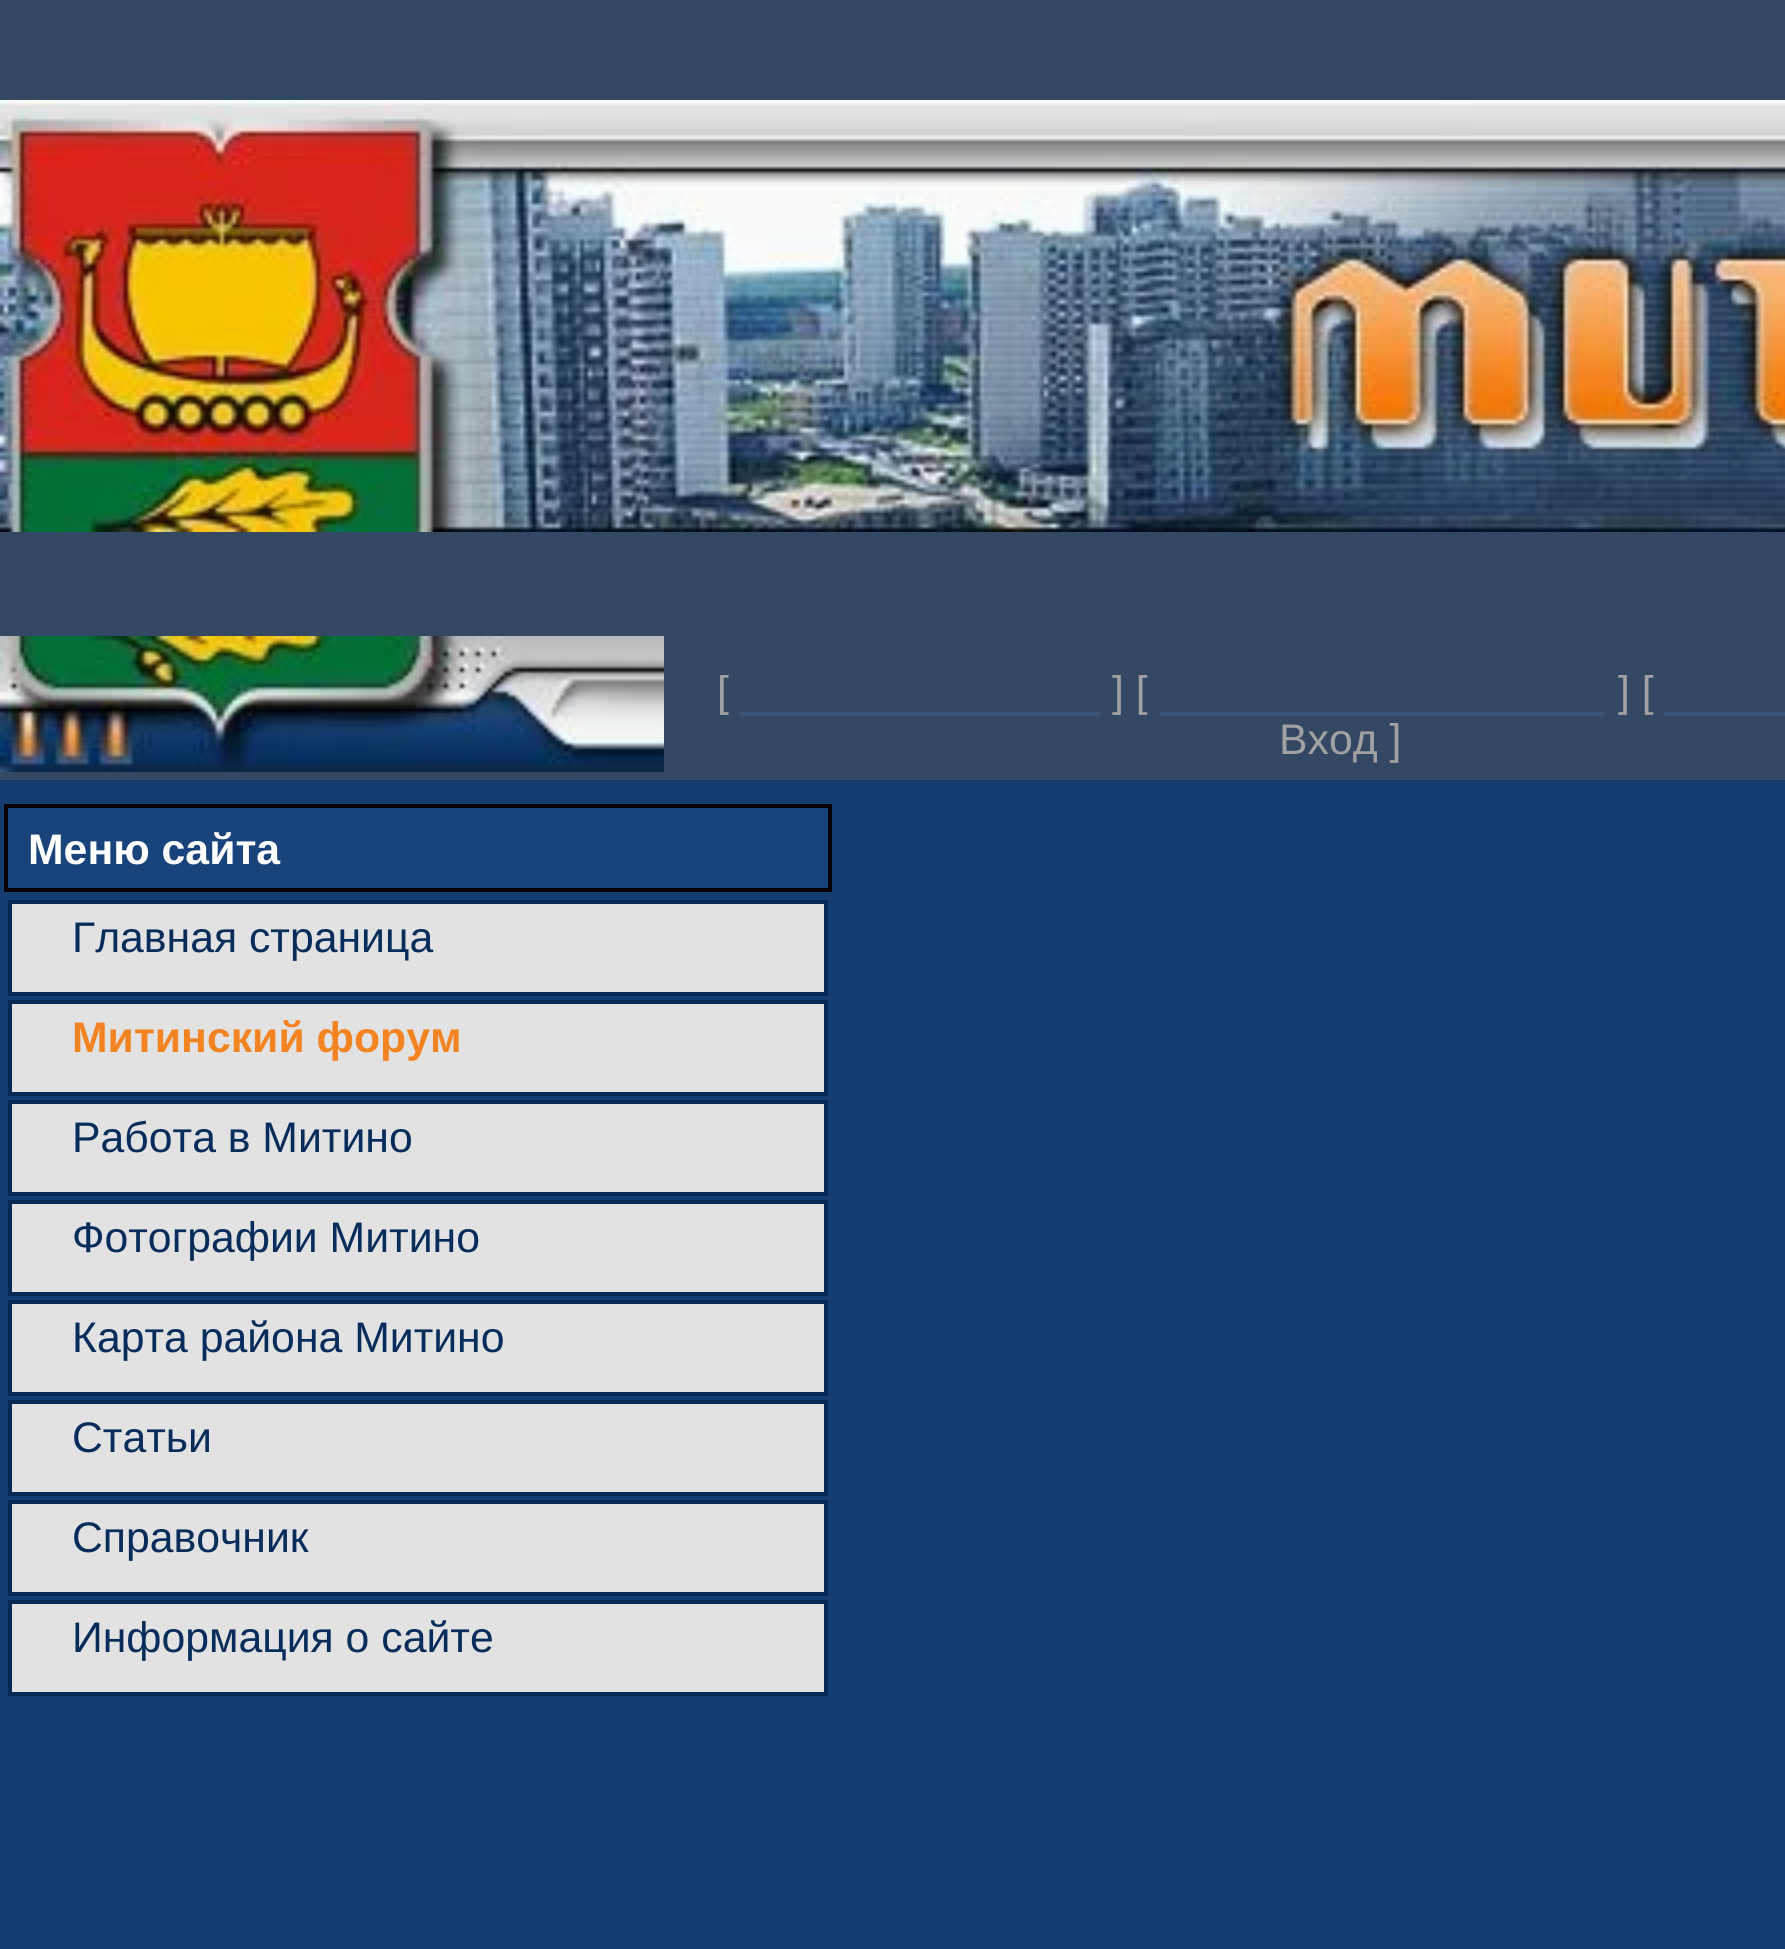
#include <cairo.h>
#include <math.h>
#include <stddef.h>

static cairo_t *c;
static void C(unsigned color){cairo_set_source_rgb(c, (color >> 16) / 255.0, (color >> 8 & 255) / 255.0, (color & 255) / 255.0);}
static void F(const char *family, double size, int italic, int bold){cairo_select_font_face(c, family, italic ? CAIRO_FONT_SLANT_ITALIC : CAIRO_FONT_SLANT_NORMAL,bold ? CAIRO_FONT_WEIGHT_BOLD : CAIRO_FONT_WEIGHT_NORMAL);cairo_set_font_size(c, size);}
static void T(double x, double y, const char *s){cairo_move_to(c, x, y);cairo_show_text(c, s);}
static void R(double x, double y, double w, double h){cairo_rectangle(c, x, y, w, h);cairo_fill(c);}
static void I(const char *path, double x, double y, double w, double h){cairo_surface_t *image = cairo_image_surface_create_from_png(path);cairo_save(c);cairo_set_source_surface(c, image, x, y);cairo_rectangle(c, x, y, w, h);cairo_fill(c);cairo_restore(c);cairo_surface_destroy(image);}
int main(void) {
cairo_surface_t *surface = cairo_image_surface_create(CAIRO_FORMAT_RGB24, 1785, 1949);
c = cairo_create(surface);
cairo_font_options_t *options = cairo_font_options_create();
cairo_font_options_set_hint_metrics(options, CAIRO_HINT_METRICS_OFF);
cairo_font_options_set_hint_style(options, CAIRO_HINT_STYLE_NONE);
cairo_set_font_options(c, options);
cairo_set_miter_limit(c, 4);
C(0x143c71);
cairo_paint(c);
C(0x344763);
R(0,0,1785,780);
I("1.png",0,100,1785,432);
I("2.png",0,636,664,136);
F("Liberation Sans",42.75,0,0);
C(0xa0a1a0);
T(717,706,"[");
C(0x385577);
R(740,712,360,4);
C(0xa0a1a0);
T(1112,706,"] [");
C(0x385577);
R(1160,712,444,4);
C(0xa0a1a0);
T(1618,706,"] [");
C(0x385577);
R(1664,712,121,4);
C(0xa0a1a0);
T(1279,754,"Вход ]");
C(0x19437b);
cairo_rectangle(c,6,806,824,84);
cairo_fill_preserve(c);
C(0x000000);
cairo_set_line_width(c,4);
cairo_stroke(c);
F("Liberation Sans",42.75,0,1);
C(0xffffff);
T(28,864,"Меню сайта");
C(0xe2e2e2);
cairo_rectangle(c,10,902,816,92);
cairo_fill_preserve(c);
C(0x052954);
cairo_stroke(c);
F("Liberation Sans",42.75,0,0);
C(0x062c5c);
T(72,952,"Главная страница");
C(0xe2e2e2);
cairo_rectangle(c,10,1002,816,92);
cairo_fill_preserve(c);
C(0x052954);
cairo_stroke(c);
F("Liberation Sans",42.75,0,1);
C(0xf38421);
T(72,1052,"Митинский форум");
C(0xe2e2e2);
cairo_rectangle(c,10,1102,816,92);
cairo_fill_preserve(c);
C(0x052954);
cairo_stroke(c);
F("Liberation Sans",42.75,0,0);
C(0x062c5c);
T(72,1152,"Работа в Митино");
C(0xe2e2e2);
cairo_rectangle(c,10,1202,816,92);
cairo_fill_preserve(c);
C(0x052954);
cairo_stroke(c);
C(0x062c5c);
T(72,1252,"Фотографии Митино");
C(0xe2e2e2);
cairo_rectangle(c,10,1302,816,92);
cairo_fill_preserve(c);
C(0x052954);
cairo_stroke(c);
C(0x062c5c);
T(72,1352,"Карта района Митино");
C(0xe2e2e2);
cairo_rectangle(c,10,1402,816,92);
cairo_fill_preserve(c);
C(0x052954);
cairo_stroke(c);
C(0x062c5c);
T(72,1452,"Статьи");
C(0xe2e2e2);
cairo_rectangle(c,10,1502,816,92);
cairo_fill_preserve(c);
C(0x052954);
cairo_stroke(c);
C(0x062c5c);
T(72,1552,"Справочник");
C(0xe2e2e2);
cairo_rectangle(c,10,1602,816,92);
cairo_fill_preserve(c);
C(0x052954);
cairo_stroke(c);
C(0x062c5c);
T(72,1652,"Информация о сайте");
cairo_surface_write_to_png(surface, "o.png");
cairo_font_options_destroy(options);
cairo_destroy(c);
cairo_surface_destroy(surface);
return 0;
}
